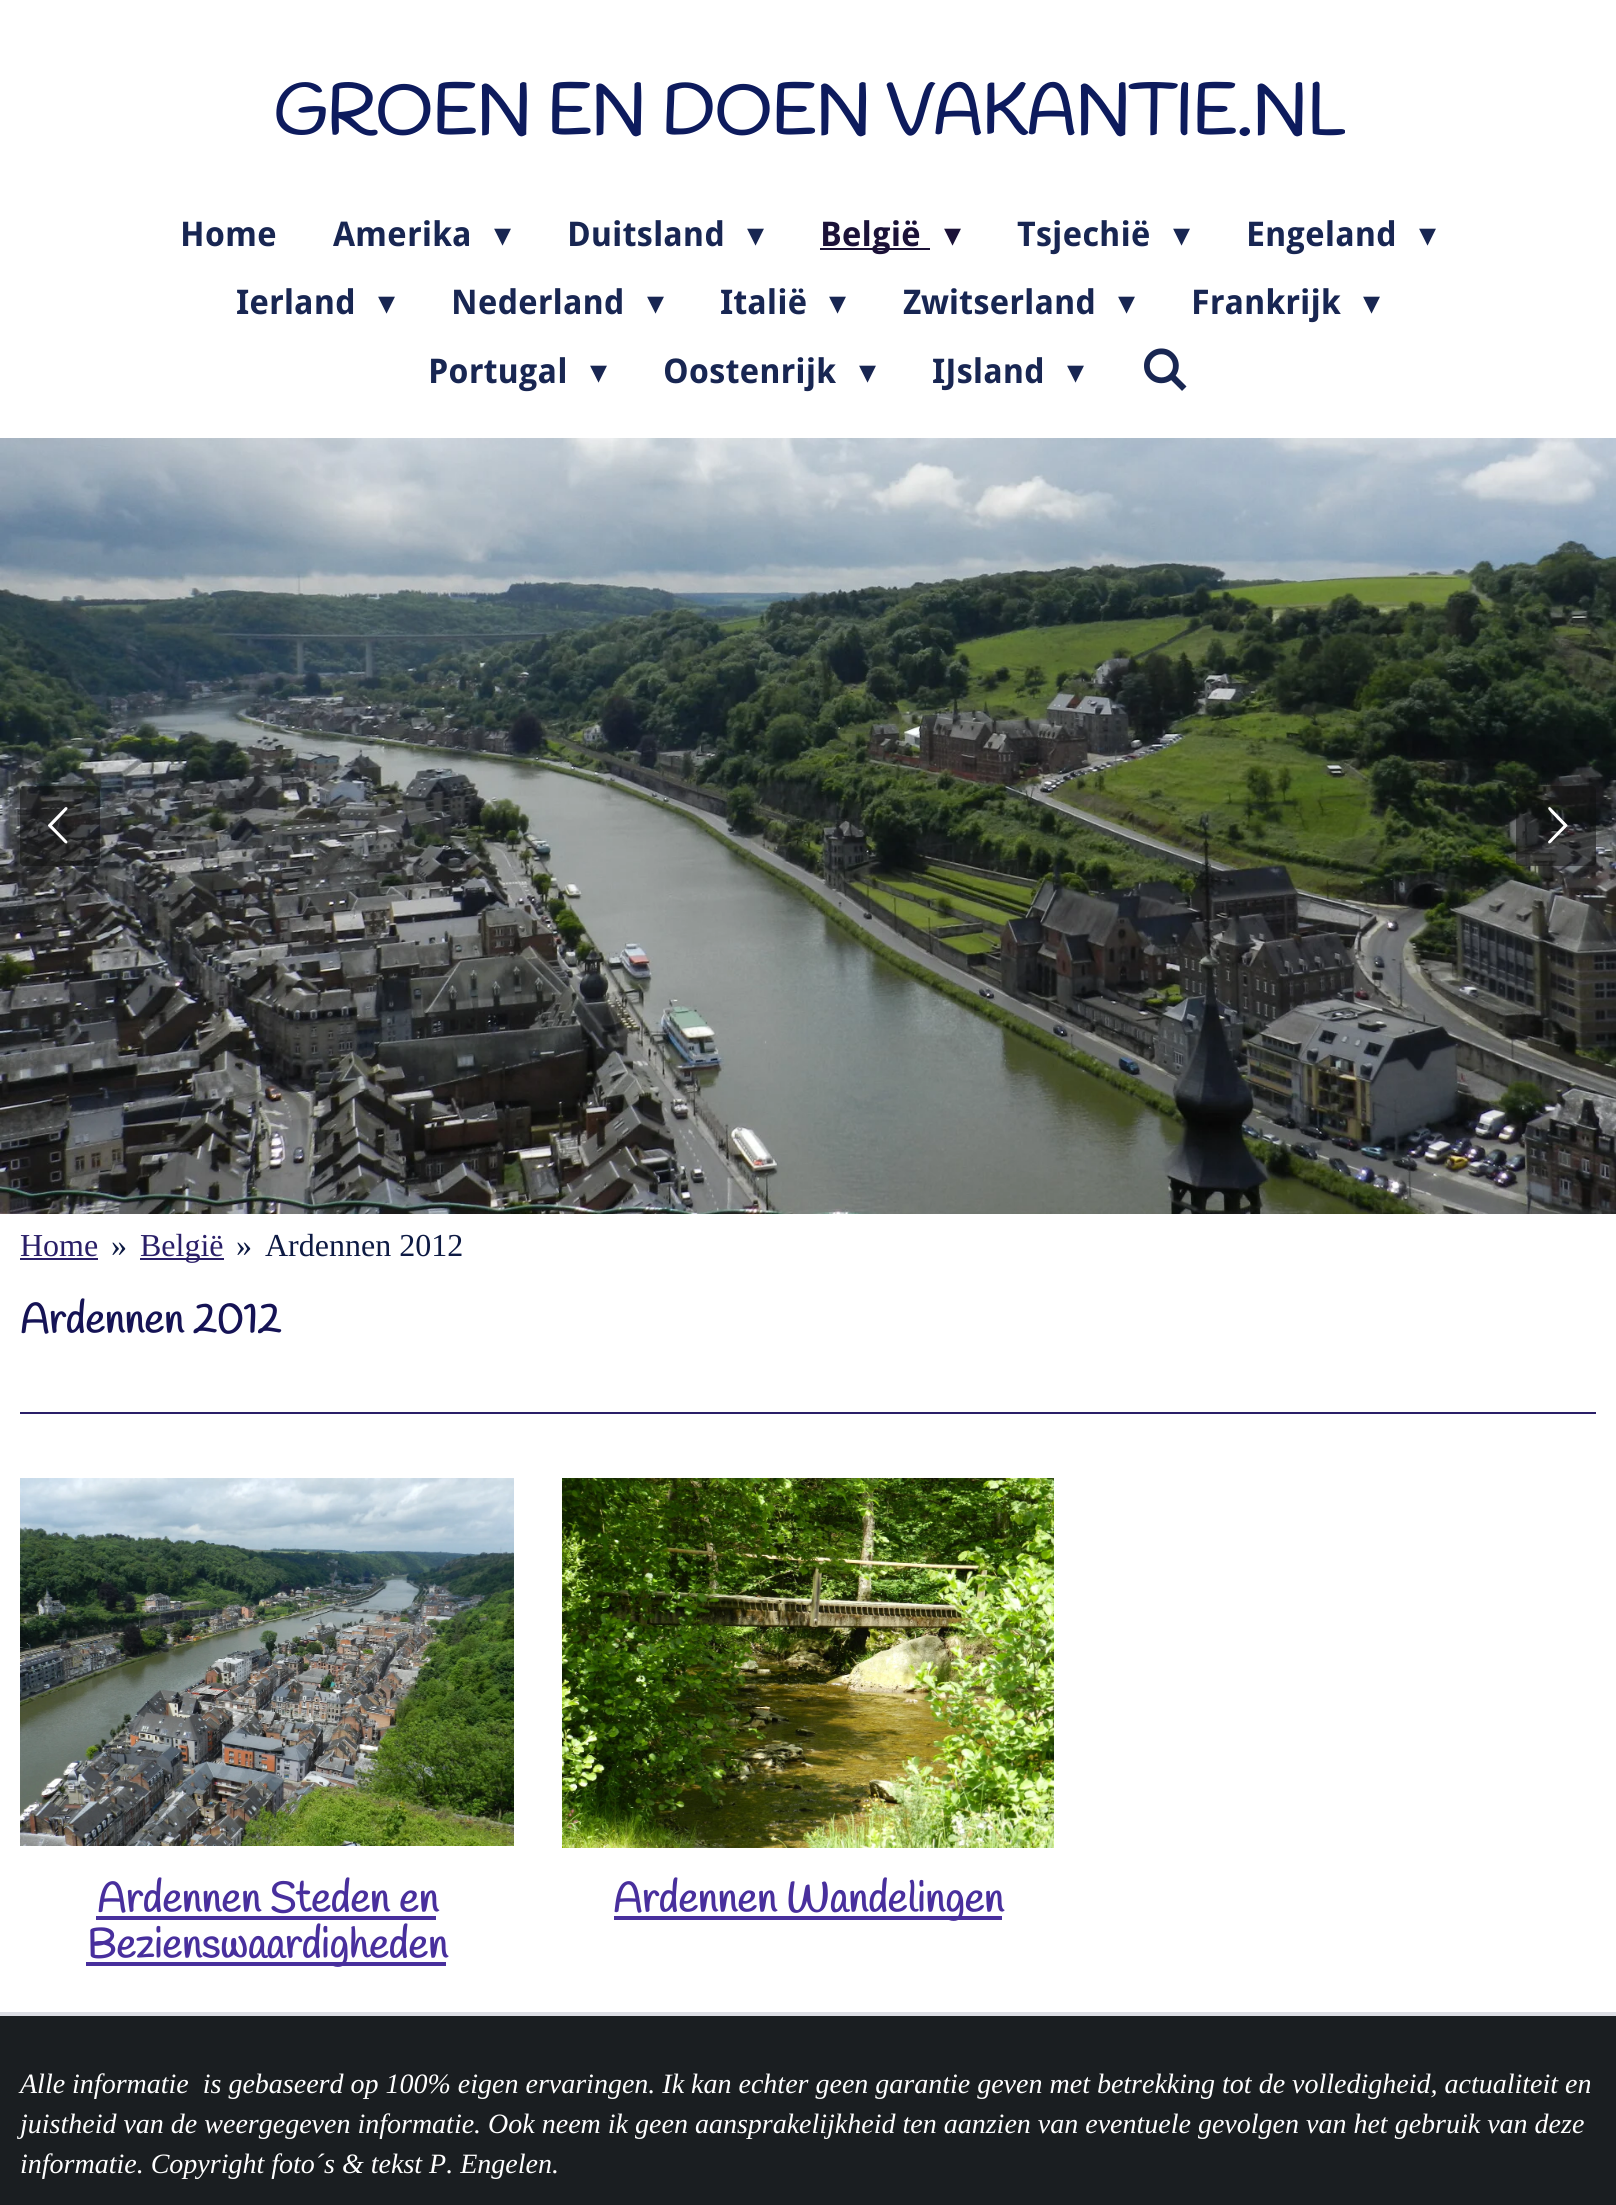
#include <cairo.h>
#include <math.h>
#include <stddef.h>

static cairo_t *c;
static void C(unsigned color){cairo_set_source_rgb(c, (color >> 16) / 255.0, (color >> 8 & 255) / 255.0, (color & 255) / 255.0);}
static void F(const char *family, double size, int italic, int bold){cairo_select_font_face(c, family, italic ? CAIRO_FONT_SLANT_ITALIC : CAIRO_FONT_SLANT_NORMAL,bold ? CAIRO_FONT_WEIGHT_BOLD : CAIRO_FONT_WEIGHT_NORMAL);cairo_set_font_size(c, size);}
static void T(double x, double y, const char *s){cairo_move_to(c, x, y);cairo_show_text(c, s);}
static void R(double x, double y, double w, double h){cairo_rectangle(c, x, y, w, h);cairo_fill(c);}
static void Q(double x, double y, double w, double h, double r){cairo_new_sub_path(c);cairo_arc(c, x + w - r, y + h - r, r, 0, M_PI / 2);cairo_arc(c, x + r, y + h - r, r, M_PI / 2, M_PI);cairo_arc(c, x + r, y + r, r, M_PI, 1.5 * M_PI);cairo_arc(c, x + w - r, y + r, r, 1.5 * M_PI, 2 * M_PI);cairo_close_path(c);}
static void I(const char *path, double x, double y, double w, double h){cairo_surface_t *image = cairo_image_surface_create_from_png(path);cairo_save(c);cairo_set_source_surface(c, image, x, y);cairo_rectangle(c, x, y, w, h);cairo_fill(c);cairo_restore(c);cairo_surface_destroy(image);}
int main(void) {
cairo_surface_t *surface = cairo_image_surface_create(CAIRO_FORMAT_RGB24, 1616, 2205);
c = cairo_create(surface);
cairo_font_options_t *options = cairo_font_options_create();
cairo_font_options_set_hint_metrics(options, CAIRO_HINT_METRICS_OFF);
cairo_font_options_set_hint_style(options, CAIRO_HINT_STYLE_NONE);
cairo_set_font_options(c, options);
cairo_set_miter_limit(c, 4);
C(0xffffff);
cairo_paint(c);
F("Handlee",70,0,1);
C(0x0d1b5d);
T(273,134,"GROEN EN DOEN VAKANTIE.NL");
F("Droid Sans",34,0,1);
C(0x182652);
T(180,246,"Home");
T(333,246,"Amerika");
F("DejaVu Sans",34,0,0);
T(494,246,"▾");
F("Droid Sans",34,0,1);
T(567,246,"Duitsland");
F("DejaVu Sans",34,0,0);
T(747,246,"▾");
C(0x1b1238);
R(820,248,110,2);
F("Droid Sans",34,0,1);
T(820,246,"België");
F("DejaVu Sans",34,0,0);
T(944,246,"▾");
F("Droid Sans",34,0,1);
C(0x182652);
T(1017,246,"Tsjechië");
F("DejaVu Sans",34,0,0);
T(1173,246,"▾");
F("Droid Sans",34,0,1);
T(1246,246,"Engeland");
F("DejaVu Sans",34,0,0);
T(1419,246,"▾");
F("Droid Sans",34,0,1);
T(236,314,"Ierland");
F("DejaVu Sans",34,0,0);
T(378,314,"▾");
F("Droid Sans",34,0,1);
T(451,314,"Nederland");
F("DejaVu Sans",34,0,0);
T(647,314,"▾");
F("Droid Sans",34,0,1);
T(720,314,"Italië");
F("DejaVu Sans",34,0,0);
T(829,314,"▾");
F("Droid Sans",34,0,1);
T(903,314,"Zwitserland");
F("DejaVu Sans",34,0,0);
T(1118,314,"▾");
F("Droid Sans",34,0,1);
T(1191,314,"Frankrijk");
F("DejaVu Sans",34,0,0);
T(1363,314,"▾");
F("Droid Sans",34,0,1);
T(428,383,"Portugal");
F("DejaVu Sans",34,0,0);
T(590,383,"▾");
F("Droid Sans",34,0,1);
T(663,383,"Oostenrijk");
F("DejaVu Sans",34,0,0);
T(859,383,"▾");
F("Droid Sans",34,0,1);
T(932,383,"IJsland");
F("DejaVu Sans",34,0,0);
T(1067,383,"▾");
I("1.png",1144,348,43,43);
I("2.png",0,438,1616,776);
cairo_set_source_rgba(c,0.059,0.059,0.059,0.5);
Q(20,786,80,80,4);
cairo_fill(c);
C(0xffffff);
cairo_new_path(c);
cairo_move_to(c,67,841);
cairo_line_to(c,67.5,842);
cairo_curve_to(c,66.5,846,62.5,840.5,62,840);
cairo_line_to(c,48,826);
cairo_line_to(c,48,825);
cairo_line_to(c,65,807.5);
cairo_line_to(c,66,807);
cairo_curve_to(c,70,808,65,811.5,64.5,812.5);
cairo_line_to(c,52,825.5);
cairo_close_path(c);
cairo_fill(c);
cairo_set_source_rgba(c,0.059,0.059,0.059,0.5);
Q(1516,786,80,80,4);
cairo_fill(c);
C(0xffffff);
cairo_new_path(c);
cairo_move_to(c,1548.5,841);
cairo_line_to(c,1563.5,825.5);
cairo_line_to(c,1551,812.5);
cairo_curve_to(c,1550.5,811.5,1546,808,1549.5,807);
cairo_line_to(c,1550.5,807.5);
cairo_line_to(c,1567.5,825);
cairo_line_to(c,1567.5,826);
cairo_line_to(c,1553.5,840);
cairo_curve_to(c,1553,840.5,1549,846,1548,842);
cairo_close_path(c);
cairo_fill(c);
C(0xdbdde3);
R(0,2012,1616,4);
F("Liberation Serif",32,0,0);
C(0x2a1f68);
T(20,1256,"Home");
R(20,1258,78,2);
C(0x0d1a43);
T(111,1256,"»");
C(0x2a1f68);
R(140,1258,84,2);
T(140,1256,"België");
C(0x0d1a43);
T(236,1256,"»");
T(265,1256,"Ardennen 2012");
F("Handlee",41.5,0,1);
C(0x151355);
T(20,1333,"Ardennen 2012");
C(0x2a1f68);
R(20,1412,1576,2);
I("3.png",20,1478,494,368);
C(0x482f9d);
T(97,1912,"Ardennen Steden en");
R(96,1916,340,4);
R(86,1962,360,4);
T(87,1958,"Bezienswaardigheden");
I("4.png",562,1478,492,370);
R(614,1916,388,4);
T(613,1912,"Ardennen Wandelingen");
C(0x1a1e21);
R(0,2016,1616,189);
F("Liberation Serif",28,1,0);
C(0xffffff);
T(20,2093,"Alle informatie  is gebaseerd op 100% eigen ervaringen. Ik kan echter geen garantie geven met betrekking tot de volledigheid, actualiteit en");
T(20,2133,"juistheid van de weergegeven informatie. Ook neem ik geen aansprakelijkheid ten aanzien van eventuele gevolgen van het gebruik van deze");
T(20,2173,"informatie. Copyright foto´s & tekst P. Engelen.");
cairo_surface_write_to_png(surface, "o.png");
cairo_font_options_destroy(options);
cairo_destroy(c);
cairo_surface_destroy(surface);
return 0;
}
